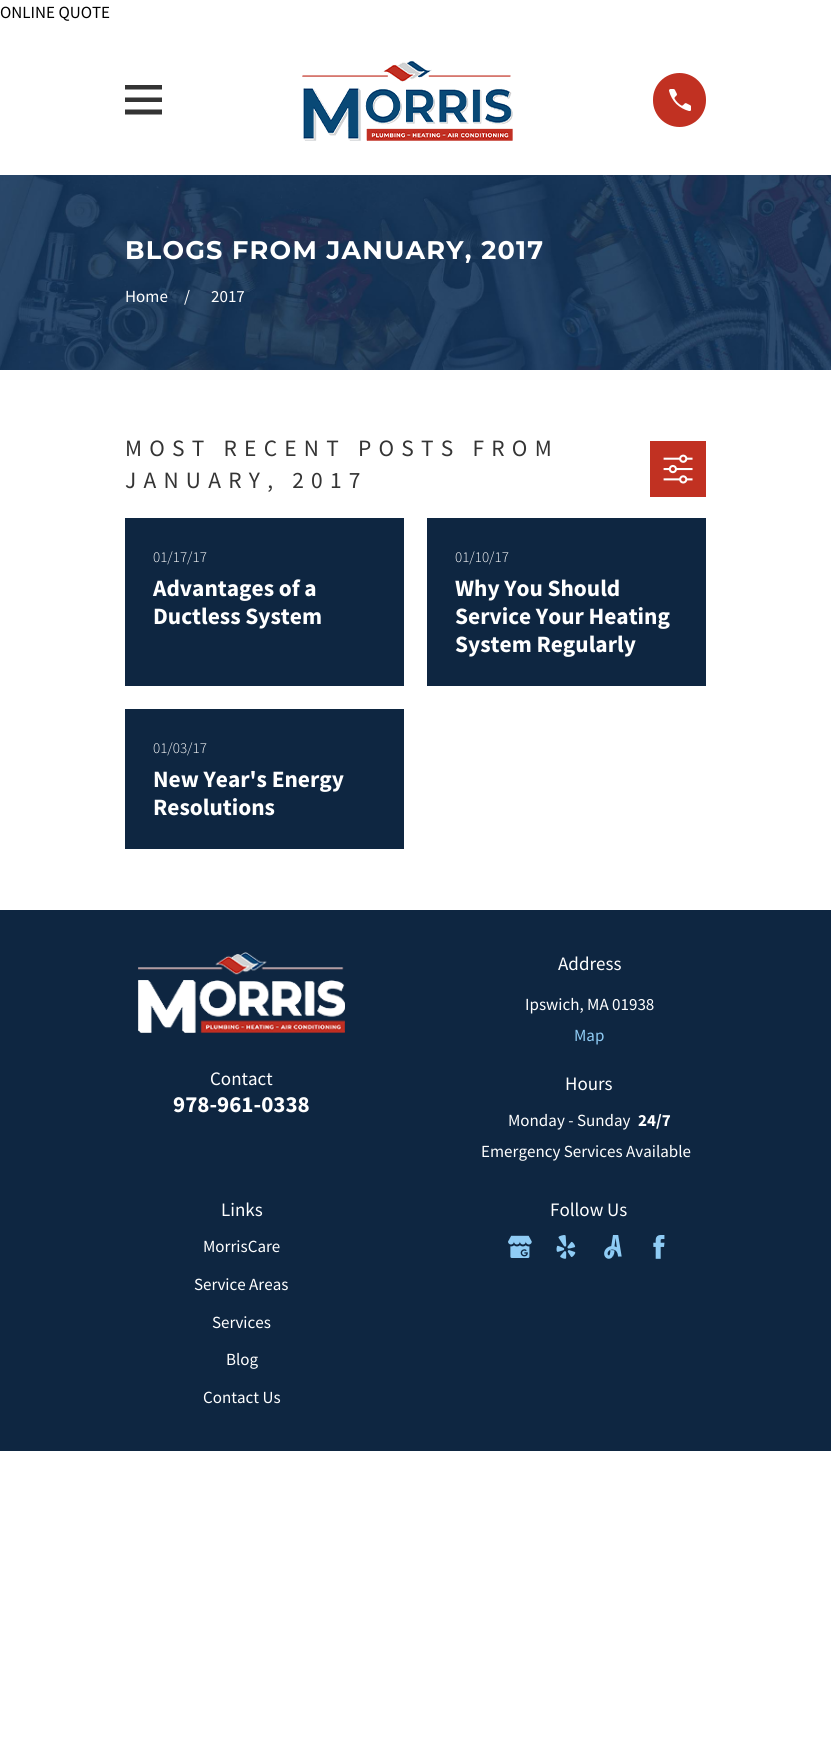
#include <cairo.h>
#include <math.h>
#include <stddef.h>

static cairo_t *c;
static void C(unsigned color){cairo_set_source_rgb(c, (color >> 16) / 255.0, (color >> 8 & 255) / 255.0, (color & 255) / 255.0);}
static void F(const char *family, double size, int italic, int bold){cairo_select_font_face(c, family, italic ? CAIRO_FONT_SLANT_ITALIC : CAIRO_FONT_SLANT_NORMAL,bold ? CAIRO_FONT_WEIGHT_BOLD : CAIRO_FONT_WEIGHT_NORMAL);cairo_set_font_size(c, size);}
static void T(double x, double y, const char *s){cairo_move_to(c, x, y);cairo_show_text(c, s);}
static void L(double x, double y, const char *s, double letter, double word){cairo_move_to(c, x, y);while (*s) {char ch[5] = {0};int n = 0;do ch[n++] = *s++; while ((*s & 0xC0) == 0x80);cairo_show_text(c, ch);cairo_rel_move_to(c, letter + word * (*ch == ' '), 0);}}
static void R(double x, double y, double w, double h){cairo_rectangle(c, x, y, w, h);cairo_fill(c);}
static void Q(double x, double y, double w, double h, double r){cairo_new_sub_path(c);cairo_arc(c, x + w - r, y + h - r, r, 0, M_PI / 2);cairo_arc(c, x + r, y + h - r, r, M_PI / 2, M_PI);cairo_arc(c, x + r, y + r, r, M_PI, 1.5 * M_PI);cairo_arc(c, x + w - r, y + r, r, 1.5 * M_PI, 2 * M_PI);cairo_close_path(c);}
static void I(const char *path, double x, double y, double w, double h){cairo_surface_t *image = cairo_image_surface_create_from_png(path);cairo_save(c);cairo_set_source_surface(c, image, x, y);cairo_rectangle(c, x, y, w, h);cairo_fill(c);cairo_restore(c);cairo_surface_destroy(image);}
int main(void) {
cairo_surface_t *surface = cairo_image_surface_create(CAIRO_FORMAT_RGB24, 831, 1740);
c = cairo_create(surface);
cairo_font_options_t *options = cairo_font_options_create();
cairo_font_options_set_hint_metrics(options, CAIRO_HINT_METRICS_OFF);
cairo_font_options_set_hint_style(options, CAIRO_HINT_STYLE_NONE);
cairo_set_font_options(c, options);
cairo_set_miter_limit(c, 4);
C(0xffffff);
cairo_paint(c);
F("Source Sans Pro",17,0,0);
C(0x000000);
T(0,18,"ONLINE QUOTE");
cairo_save(c);
cairo_rectangle(c,125,81,37,38);
cairo_clip(c);
C(0x343434);
cairo_new_path(c);
cairo_move_to(c,125,85);
cairo_line_to(c,125,89.5);
cairo_line_to(c,162.5,89.5);
cairo_line_to(c,162.5,85);
cairo_close_path(c);
cairo_move_to(c,125,97.5);
cairo_line_to(c,125,102);
cairo_line_to(c,162.5,102);
cairo_line_to(c,162.5,97.5);
cairo_close_path(c);
cairo_move_to(c,125,109.5);
cairo_line_to(c,125,114.5);
cairo_line_to(c,162.5,114.5);
cairo_line_to(c,162.5,109.5);
cairo_close_path(c);
cairo_fill(c);
cairo_restore(c);
I("1.png",302,60,211,81);
C(0xc13122);
Q(653,73,53,54,26.5);
cairo_fill(c);
I("2.png",669,89,22,22);
I("3.png",0,175,831,195);
F("Montserrat",25.5,0,1);
C(0xffffff);
L(125,259,"BLOGS FROM JANUARY, 2017",1.25,0);
F("Source Sans Pro",17,0,0);
T(125,302,"Home");
T(184,302,"/");
T(211,302,"2017");
F("Source Sans Pro",23.4,0,0);
C(0x343434);
L(125,456,"MOST RECENT POSTS FROM",7.25,0);
L(125,488,"JANUARY, 2017",7.25,0);
C(0xc13122);
R(650,441,56,56);
I("4.png",663,454,30,30);
C(0x0e2641);
R(125,518,279,168);
F("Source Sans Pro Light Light",15,0,0);
C(0xffffff);
T(153,562,"01/17/17");
F("Source Sans Pro",23.4,0,1);
T(153,596,"Advantages of a");
T(153,624,"Ductless System");
C(0x0e2641);
R(427,518,279,168);
F("Source Sans Pro Light Light",15,0,0);
C(0xffffff);
T(455,562,"01/10/17");
F("Source Sans Pro",23.4,0,1);
T(455,596,"Why You Should");
T(455,624,"Service Your Heating");
T(455,652,"System Regularly");
C(0x0e2641);
R(125,709,279,140);
F("Source Sans Pro Light Light",15,0,0);
C(0xffffff);
T(153,753,"01/03/17");
F("Source Sans Pro",23.4,0,1);
T(153,787,"New Year's Energy");
T(153,815,"Resolutions");
C(0x0e2641);
R(0,910,831,541);
I("5.png",138,952,207,81);
F("Source Sans Pro",19,0,0);
C(0xffffff);
T(210,1085,"Contact");
F("Source Sans Pro",23,0,1);
T(173,1112,"978-961-0338");
F("Source Sans Pro",19,0,0);
T(558,970,"Address");
F("Source Sans Pro",17,0,0);
T(525,1010,"Ipswich, MA 01938");
C(0x8fccf5);
T(574,1041,"Map");
F("Source Sans Pro",19,0,0);
C(0xffffff);
T(565,1090,"Hours");
F("Source Sans Pro",17,0,0);
T(508,1126,"Monday - Sunday");
F("Source Sans Pro",17,0,1);
T(638,1126,"24/7");
F("Source Sans Pro",17,0,0);
T(481,1157,"Emergency Services Available");
F("Source Sans Pro",19,0,0);
T(221,1216,"Links");
F("Source Sans Pro",17,0,0);
T(203,1252,"MorrisCare");
T(194,1290,"Service Areas");
T(212,1328,"Services");
T(226,1365,"Blog");
T(203,1403,"Contact Us");
F("Source Sans Pro",19,0,0);
T(550,1216,"Follow Us");
I("6.png",508,1235,24,23);
I("7.png",556,1235,20,24);
I("8.png",604,1235,18,24);
I("9.png",653,1235,12,24);
cairo_surface_write_to_png(surface, "o.png");
cairo_font_options_destroy(options);
cairo_destroy(c);
cairo_surface_destroy(surface);
return 0;
}
